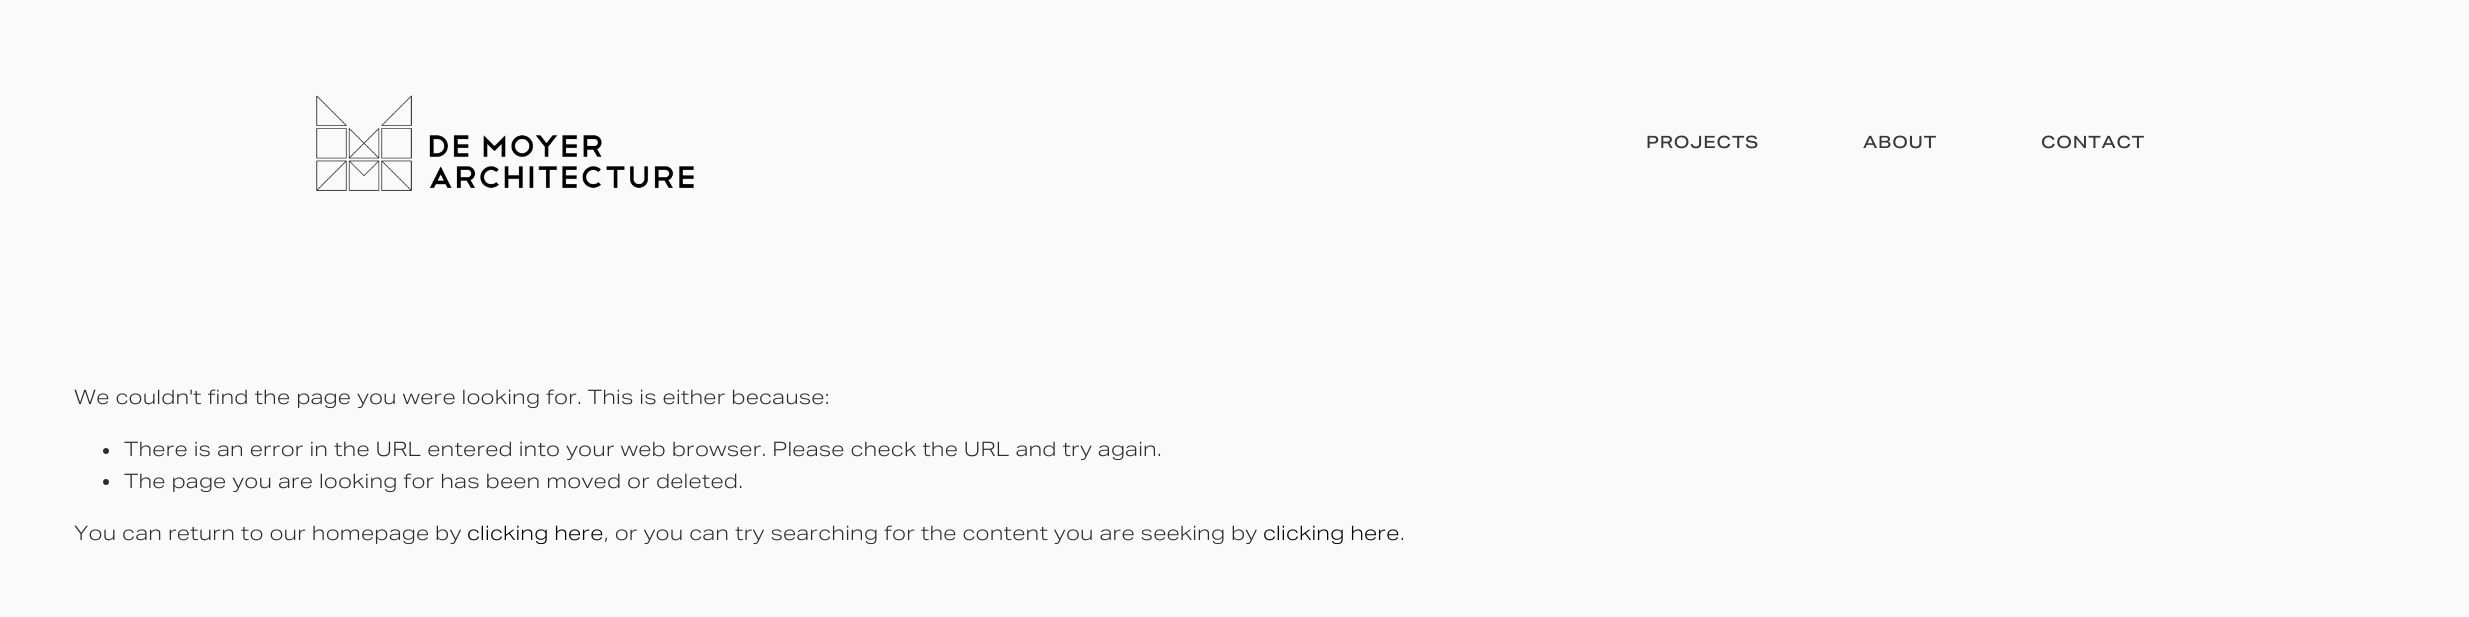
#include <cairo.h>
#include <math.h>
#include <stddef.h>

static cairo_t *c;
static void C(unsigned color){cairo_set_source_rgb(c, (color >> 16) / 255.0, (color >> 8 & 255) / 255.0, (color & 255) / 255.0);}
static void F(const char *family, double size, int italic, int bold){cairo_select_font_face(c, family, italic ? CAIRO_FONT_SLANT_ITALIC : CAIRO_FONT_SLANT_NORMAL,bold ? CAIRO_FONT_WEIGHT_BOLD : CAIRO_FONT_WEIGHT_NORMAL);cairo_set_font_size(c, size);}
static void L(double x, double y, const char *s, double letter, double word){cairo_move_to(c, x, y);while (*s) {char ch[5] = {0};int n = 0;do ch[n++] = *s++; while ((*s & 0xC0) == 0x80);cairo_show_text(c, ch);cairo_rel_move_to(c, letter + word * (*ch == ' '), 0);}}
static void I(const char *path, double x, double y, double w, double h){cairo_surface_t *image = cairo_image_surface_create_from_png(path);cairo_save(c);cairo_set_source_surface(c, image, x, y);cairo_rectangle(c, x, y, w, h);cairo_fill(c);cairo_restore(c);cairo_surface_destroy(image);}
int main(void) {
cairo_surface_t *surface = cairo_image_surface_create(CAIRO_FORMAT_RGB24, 2469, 617);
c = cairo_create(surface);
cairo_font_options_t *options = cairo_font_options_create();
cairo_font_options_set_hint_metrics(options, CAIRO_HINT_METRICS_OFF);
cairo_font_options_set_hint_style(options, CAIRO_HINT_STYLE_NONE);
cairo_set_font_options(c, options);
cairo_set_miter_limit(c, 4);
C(0xfbfafa);
cairo_paint(c);
I("1.png",316,95,378,96);
F("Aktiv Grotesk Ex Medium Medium",17,0,0);
C(0x393838);
L(1646,148,"PROJECTS",.75,0);
L(1863,148,"ABOUT",.75,0);
L(2041,148,"CONTACT",.75,0);
F("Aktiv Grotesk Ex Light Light",20,0,0);
C(0x2d2c2c);
L(74,404,"We couldn't find the page you were looking for. This is either because:",.2,0);
cairo_new_path(c);
cairo_arc(c,106,451,3,0,2 * M_PI);
cairo_fill(c);
L(124,456,"There is an error in the URL entered into your web browser. Please check the URL and try again.",.2,0);
cairo_new_path(c);
cairo_arc(c,106,482,3,0,2 * M_PI);
cairo_fill(c);
L(124,488,"The page you are looking for has been moved or deleted.",.2,0);
L(74,540,"You can return to our homepage by",.2,0);
C(0x000000);
L(467,540,"clicking here",.2,0);
C(0x2d2c2c);
L(604,540,", or you can try searching for the content you are seeking by",.2,0);
C(0x000000);
L(1263,540,"clicking here",.2,0);
C(0x2d2c2c);
L(1400,540,".",.2,0);
cairo_surface_write_to_png(surface, "o.png");
cairo_font_options_destroy(options);
cairo_destroy(c);
cairo_surface_destroy(surface);
return 0;
}
